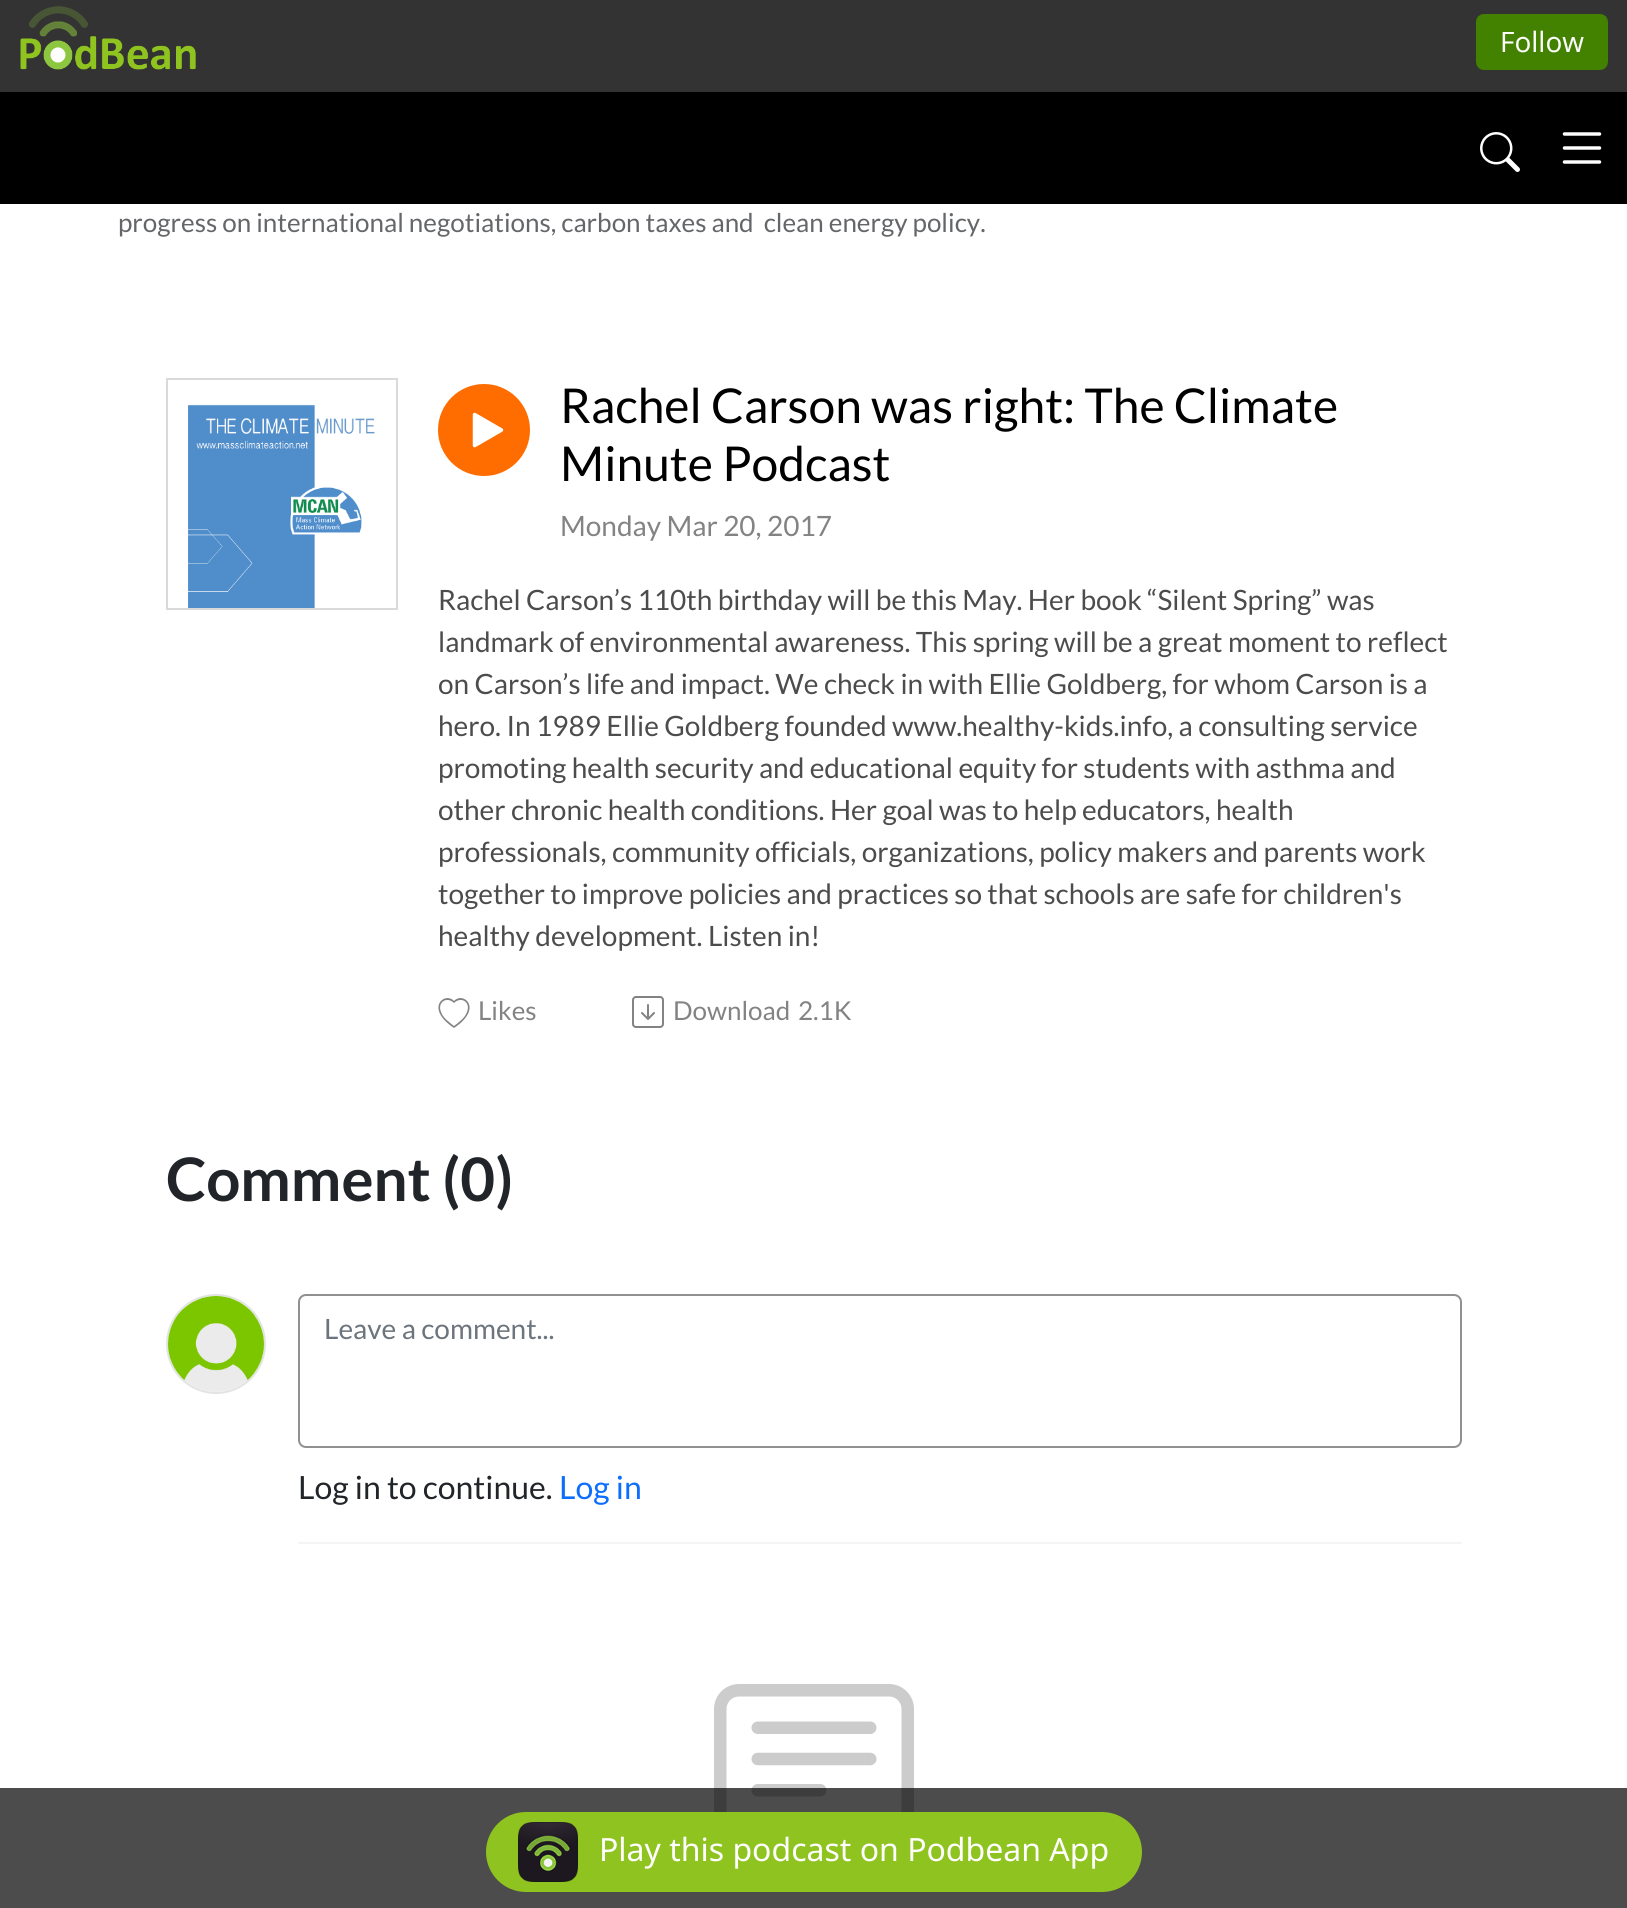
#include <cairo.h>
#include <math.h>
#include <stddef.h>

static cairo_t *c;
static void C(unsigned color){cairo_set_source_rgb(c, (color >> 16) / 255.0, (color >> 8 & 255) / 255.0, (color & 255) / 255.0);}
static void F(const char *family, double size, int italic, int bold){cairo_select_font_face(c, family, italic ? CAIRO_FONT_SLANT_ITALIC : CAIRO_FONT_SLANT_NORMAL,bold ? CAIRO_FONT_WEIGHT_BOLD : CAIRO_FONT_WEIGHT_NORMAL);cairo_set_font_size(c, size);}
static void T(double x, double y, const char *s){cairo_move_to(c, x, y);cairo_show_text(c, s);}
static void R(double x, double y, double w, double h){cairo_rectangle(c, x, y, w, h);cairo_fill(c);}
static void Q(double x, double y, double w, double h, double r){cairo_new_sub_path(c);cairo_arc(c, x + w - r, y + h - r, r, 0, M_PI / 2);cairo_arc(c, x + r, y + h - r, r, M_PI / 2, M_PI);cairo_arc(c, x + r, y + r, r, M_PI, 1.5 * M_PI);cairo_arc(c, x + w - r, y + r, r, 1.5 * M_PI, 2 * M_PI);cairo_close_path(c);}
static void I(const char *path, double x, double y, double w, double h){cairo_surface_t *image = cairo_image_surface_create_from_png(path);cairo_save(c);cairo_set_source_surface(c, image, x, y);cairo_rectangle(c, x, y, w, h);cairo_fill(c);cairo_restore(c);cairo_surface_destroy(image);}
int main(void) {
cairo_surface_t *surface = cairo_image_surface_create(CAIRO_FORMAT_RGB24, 1627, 1908);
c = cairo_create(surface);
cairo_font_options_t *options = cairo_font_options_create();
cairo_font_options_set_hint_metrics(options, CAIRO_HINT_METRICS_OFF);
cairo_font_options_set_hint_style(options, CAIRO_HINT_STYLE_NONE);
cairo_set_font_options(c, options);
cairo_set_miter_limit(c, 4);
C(0xffffff);
cairo_paint(c);
C(0x333333);
R(0,0,1627,92);
I("1.png",20,6,1588,64);
C(0x000000);
R(0,92,1627,112);
I("2.png",1480,132,40,40);
I("3.png",1562,132,40,32);
F("Lato",26,0,0);
C(0x646669);
T(118,232,"progress on international negotiations, carbon taxes and  clean energy policy.");
cairo_rectangle(c,167,379,230,230);
C(0xdadada);
cairo_stroke(c);
I("4.png",188,404,187,204);
C(0xff6d00);
cairo_arc(c,484,430,46,0,2 * M_PI);
cairo_fill(c);
I("5.png",472,412,32,36);
F("Lato",48,0,0);
C(0x000000);
T(560,423,"Rachel Carson was right: The Climate");
T(560,481,"Minute Podcast");
F("Lato",28,0,0);
C(0x838383);
T(560,536,"Monday Mar 20, 2017");
C(0x4c4c4c);
T(438,610,"Rachel Carson’s 110th birthday will be this May. Her book “Silent Spring” was");
T(438,652,"landmark of environmental awareness. This spring will be a great moment to reflect");
T(438,694,"on Carson’s life and impact. We check in with Ellie Goldberg, for whom Carson is a");
T(438,736,"hero. In 1989 Ellie Goldberg founded www.healthy-kids.info, a consulting service");
T(438,778,"promoting health security and educational equity for students with asthma and");
T(438,820,"other chronic health conditions. Her goal was to help educators, health");
T(438,862,"professionals, community officials, organizations, policy makers and parents work");
T(438,904,"together to improve policies and practices so that schools are safe for children's");
T(438,946,"healthy development. Listen in!");
C(0x838383);
cairo_new_path(c);
cairo_move_to(c,454,1003);
cairo_curve_to(c,447,996,437,1002,441,1012);
cairo_curve_to(c,443,1018,449,1022,454,1026);
cairo_curve_to(c,459,1022,465,1018,467,1012);
cairo_curve_to(c,471,1002,461,996,454,1003);
cairo_close_path(c);
cairo_move_to(c,454,1028);
cairo_curve_to(c,424,1008,445,991,454,1001);
cairo_curve_to(c,463,991,484,1008,454,1028);
cairo_close_path(c);
cairo_fill(c);
F("Lato",26,0,0);
T(478,1020,"Likes");
I("6.png",632,996,32,32);
T(673,1020,"Download");
T(798,1020,"2.1K");
F("Lato",60,0,1);
C(0x212529);
T(166,1201,"Comment (0)");
cairo_new_path(c);
cairo_arc(c,216,1344,49,0,2 * M_PI);
C(0xe3e3e3);
cairo_stroke(c);
I("7.png",168,1296,96,96);
C(0xf5f5f5);
R(298,1542,1164,2);
Q(299,1295,1162,152,7);
C(0x909090);
cairo_stroke(c);
F("Lato",28,0,0);
C(0x6c757d);
T(324,1339,"Leave a comment...");
F("Lato",32,0,0);
C(0x212529);
T(298,1499,"Log in to continue.");
C(0x0d6efd);
T(559,1499,"Log in");
I("8.png",714,1684,200,128);
cairo_set_source_rgba(c,0,0,0,0.7);
R(0,1788,1627,120);
C(0x8fc31f);
Q(486,1812,656,80,40);
cairo_fill(c);
I("9.png",518,1822,60,60);
F("Noto Sans",32,0,0);
C(0xffffff);
T(599,1861,"Play this podcast on Podbean App");
cairo_surface_write_to_png(surface, "o.png");
cairo_font_options_destroy(options);
cairo_destroy(c);
cairo_surface_destroy(surface);
return 0;
}
